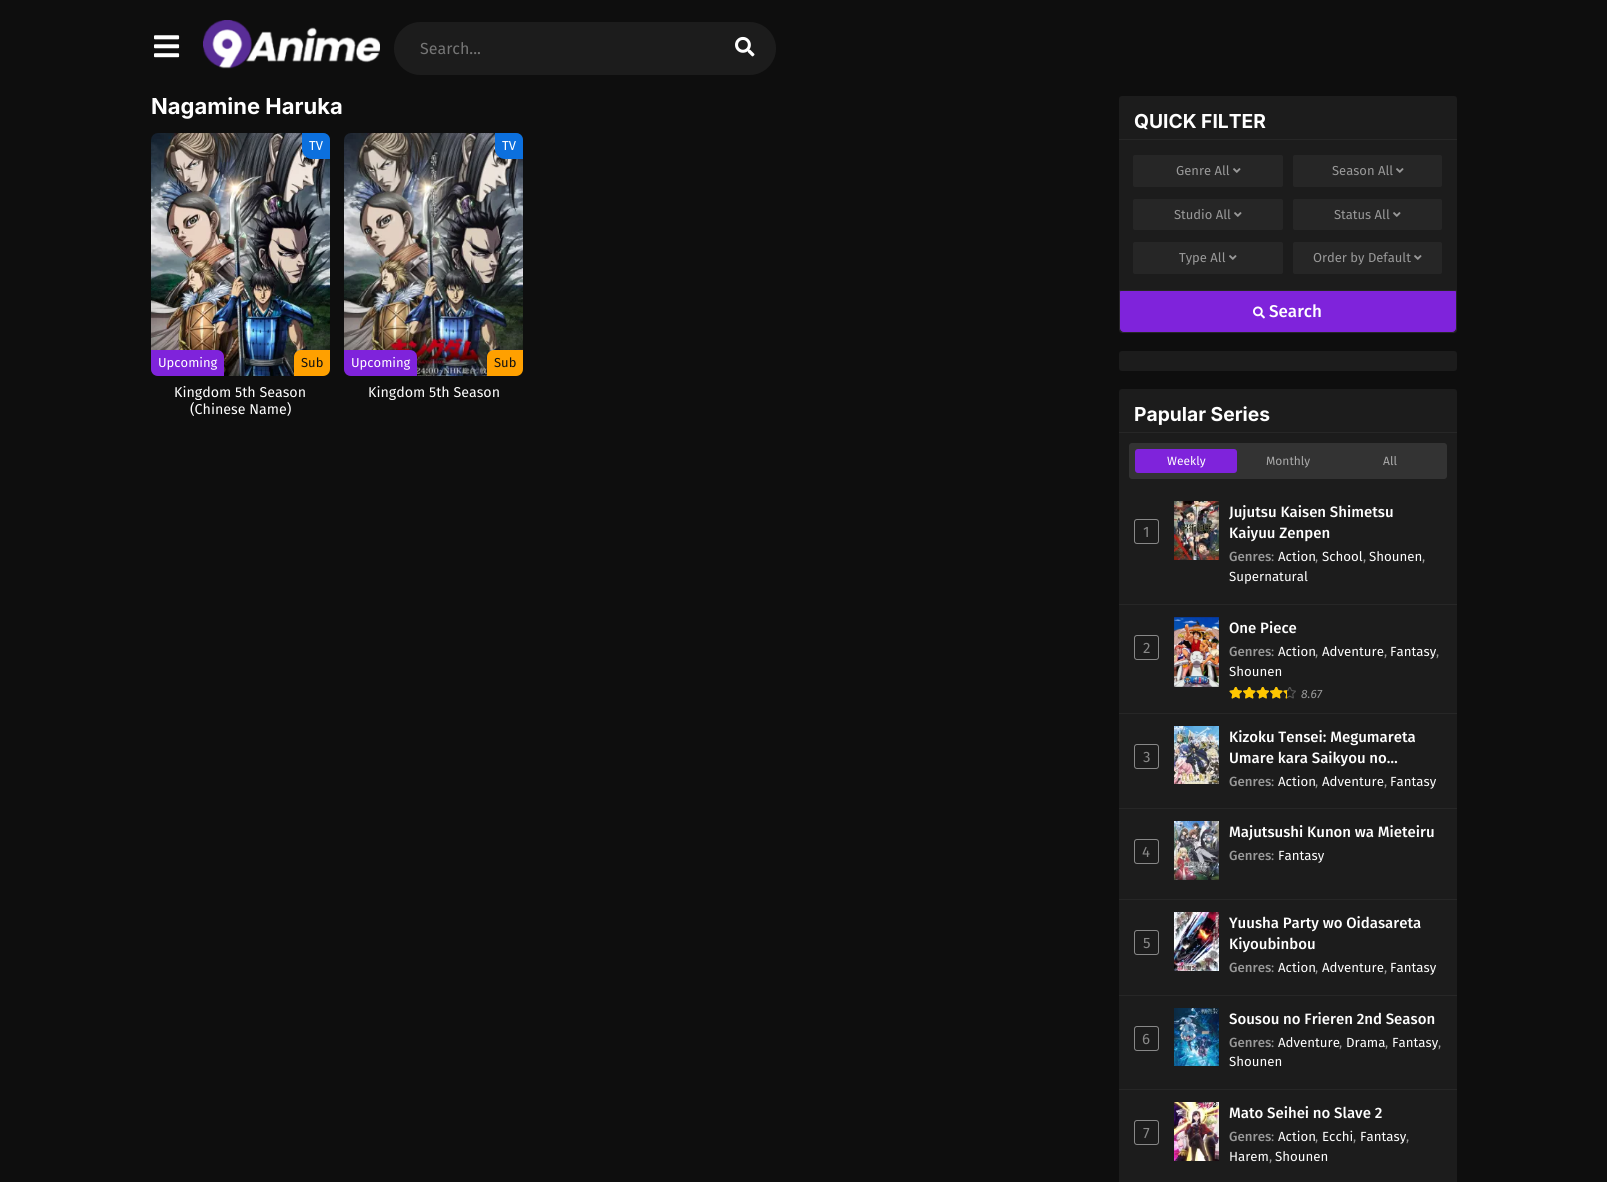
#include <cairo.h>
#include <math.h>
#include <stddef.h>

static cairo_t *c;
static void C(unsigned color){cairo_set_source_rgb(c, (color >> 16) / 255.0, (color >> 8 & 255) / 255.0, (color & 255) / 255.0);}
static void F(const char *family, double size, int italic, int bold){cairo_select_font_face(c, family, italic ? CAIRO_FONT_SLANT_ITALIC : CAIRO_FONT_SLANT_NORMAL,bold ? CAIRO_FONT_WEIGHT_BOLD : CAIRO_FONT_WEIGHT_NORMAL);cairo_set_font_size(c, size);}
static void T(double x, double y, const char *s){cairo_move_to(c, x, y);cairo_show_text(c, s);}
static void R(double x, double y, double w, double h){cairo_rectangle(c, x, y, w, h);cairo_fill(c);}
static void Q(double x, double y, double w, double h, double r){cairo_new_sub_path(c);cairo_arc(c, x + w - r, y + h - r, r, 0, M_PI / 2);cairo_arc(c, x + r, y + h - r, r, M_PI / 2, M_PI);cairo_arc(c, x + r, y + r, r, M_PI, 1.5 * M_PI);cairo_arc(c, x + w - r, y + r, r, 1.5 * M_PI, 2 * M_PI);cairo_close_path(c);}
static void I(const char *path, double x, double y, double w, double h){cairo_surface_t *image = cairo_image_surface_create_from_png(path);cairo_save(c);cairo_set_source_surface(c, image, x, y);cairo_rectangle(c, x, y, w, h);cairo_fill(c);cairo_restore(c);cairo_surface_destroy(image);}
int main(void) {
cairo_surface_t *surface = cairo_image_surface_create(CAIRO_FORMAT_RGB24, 1607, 1182);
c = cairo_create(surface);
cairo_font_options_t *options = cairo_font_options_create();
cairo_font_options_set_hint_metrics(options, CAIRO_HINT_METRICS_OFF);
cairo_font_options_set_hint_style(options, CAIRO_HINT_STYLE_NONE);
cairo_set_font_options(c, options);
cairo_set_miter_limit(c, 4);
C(0x0e0e0e);
cairo_paint(c);
I("1.png",154,35,26,23);
I("2.png",203,20,177,49);
C(0x1c1c1c);
Q(394,22,382,53,26.5);
cairo_fill(c);
F("Fira Sans",16,0,0);
C(0x757575);
T(420,54,"Search...");
I("3.png",735,36,20,21);
F("Inter",22,0,1);
C(0xffffff);
T(151,114,"Nagamine Haruka");
I("4.png",151,133,179,243);
C(0x0c70de);
cairo_new_path(c);
cairo_move_to(c,302,133);
cairo_line_to(c,323,133);
cairo_curve_to(c,327,133,330,136,330,140);
cairo_line_to(c,330,159);
cairo_line_to(c,312,159);
cairo_curve_to(c,306.5,159,302,154.5,302,149);
cairo_close_path(c);
cairo_fill(c);
F("Fira Sans",13,0,0);
C(0xffffff);
T(309,150,"TV");
C(0x7f23db);
cairo_new_path(c);
cairo_move_to(c,151,350);
cairo_line_to(c,217,350);
cairo_curve_to(c,221,350,224,353,224,357);
cairo_line_to(c,224,376);
cairo_line_to(c,158,376);
cairo_curve_to(c,154,376,151,373,151,369);
cairo_close_path(c);
cairo_fill(c);
C(0xffffff);
T(158,367,"Upcoming");
C(0xffa000);
cairo_new_path(c);
cairo_move_to(c,301,350);
cairo_line_to(c,330,350);
cairo_line_to(c,330,369);
cairo_curve_to(c,330,373,327,376,323,376);
cairo_line_to(c,294,376);
cairo_line_to(c,294,357);
cairo_curve_to(c,294,353,297,350,301,350);
cairo_close_path(c);
cairo_fill(c);
C(0x111111);
T(301,367,"Sub");
F("Fira Sans",14.25,0,0);
C(0xffffff);
T(174,397,"Kingdom 5th Season");
T(190,414,"(Chinese Name)");
I("5.png",344,133,179,243);
C(0x0c70de);
cairo_new_path(c);
cairo_move_to(c,495,133);
cairo_line_to(c,516,133);
cairo_curve_to(c,520,133,523,136,523,140);
cairo_line_to(c,523,159);
cairo_line_to(c,505,159);
cairo_curve_to(c,499.5,159,495,154.5,495,149);
cairo_close_path(c);
cairo_fill(c);
F("Fira Sans",13,0,0);
C(0xffffff);
T(502,150,"TV");
C(0x7f23db);
cairo_new_path(c);
cairo_move_to(c,344,350);
cairo_line_to(c,410,350);
cairo_curve_to(c,414,350,417,353,417,357);
cairo_line_to(c,417,376);
cairo_line_to(c,351,376);
cairo_curve_to(c,347,376,344,373,344,369);
cairo_close_path(c);
cairo_fill(c);
C(0xffffff);
T(351,367,"Upcoming");
C(0xffa000);
cairo_new_path(c);
cairo_move_to(c,494,350);
cairo_line_to(c,523,350);
cairo_line_to(c,523,369);
cairo_curve_to(c,523,373,520,376,516,376);
cairo_line_to(c,487,376);
cairo_line_to(c,487,357);
cairo_curve_to(c,487,353,490,350,494,350);
cairo_close_path(c);
cairo_fill(c);
C(0x111111);
T(494,367,"Sub");
F("Fira Sans",14.25,0,0);
C(0xffffff);
T(368,397,"Kingdom 5th Season");
C(0x1c1c1c);
Q(1119,96,338,237,3);
cairo_fill(c);
C(0x272727);
R(1119,139,338,1);
F("Inter",19.25,0,1);
C(0xffffff);
T(1134,128,"QUICK FILTER");
C(0x262626);
Q(1133,155,150,32,2);
cairo_fill(c);
F("Fira Sans",13,0,0);
C(0x999999);
T(1176,175,"Genre All");
I("6.png",1233,168,8,5);
C(0x262626);
Q(1293,155,149,32,2);
cairo_fill(c);
C(0x999999);
T(1332,175,"Season All");
I("6.png",1396,168,8,5);
C(0x262626);
Q(1133,199,150,31,2);
cairo_fill(c);
C(0x999999);
T(1174,219,"Studio All");
I("6.png",1234,212,8,5);
C(0x262626);
Q(1293,199,149,31,2);
cairo_fill(c);
C(0x999999);
T(1334,219,"Status All");
I("6.png",1393,212,8,5);
C(0x262626);
Q(1133,242,150,32,2);
cairo_fill(c);
C(0x999999);
T(1179,262,"Type All");
I("6.png",1229,255,8,5);
C(0x262626);
Q(1293,242,149,32,2);
cairo_fill(c);
C(0x999999);
T(1313,262,"Order by Default");
I("6.png",1414,255,8,5);
C(0x7f23db);
cairo_new_path(c);
cairo_move_to(c,1121,290.5);
cairo_line_to(c,1455,290.5);
cairo_curve_to(c,1456,290.5,1456.5,291,1456.5,292);
cairo_line_to(c,1456.5,328);
cairo_curve_to(c,1456.5,330.5,1454.5,332.5,1452,332.5);
cairo_line_to(c,1124,332.5);
cairo_curve_to(c,1121.5,332.5,1119.5,330.5,1119.5,328);
cairo_line_to(c,1119.5,292);
cairo_curve_to(c,1119.5,291,1120,290.5,1121,290.5);
cairo_close_path(c);
cairo_fill_preserve(c);
C(0x262626);
cairo_set_line_width(c,1);
cairo_stroke(c);
I("7.png",1253,306,12,13);
F("Fira Sans Medium",17,0,0);
C(0xffffff);
T(1269,317,"Search");
C(0x1c1c1c);
Q(1119,351,338,20,3);
cairo_fill(c);
Q(1119,389,338,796,3);
cairo_fill(c);
C(0x272727);
R(1119,432,338,1);
F("Inter",19.25,0,1);
C(0xffffff);
T(1134,421,"Papular Series");
C(0x333333);
Q(1129,443,318,36,3);
cairo_fill(c);
C(0x7f23db);
Q(1135,449,102,24,3);
cairo_fill(c);
F("Fira Sans",12,0,0);
C(0xffffff);
T(1167,465,"Weekly");
C(0xaaaaaa);
T(1266,465,"Monthly");
T(1383,465,"All");
C(0x272727);
R(1119,604,338,1);
Q(1134.5,519.5,24,24,2.5);
C(0x888888);
cairo_stroke(c);
F("Fira Sans",15,0,0);
T(1143,537,"1");
I("8.png",1174,501,45,59);
F("Fira Sans Medium",15,0,0);
C(0xffffff);
T(1229,517,"Jujutsu Kaisen Shimetsu");
T(1229,538,"Kaiyuu Zenpen");
F("Fira Sans Medium",13.25,0,0);
C(0x999999);
T(1229,561,"Genres");
F("Fira Sans",13.25,0,0);
T(1271,561,":");
C(0xffffff);
T(1278,561,"Action");
C(0x999999);
T(1315,561,",");
C(0xffffff);
T(1322,561,"School");
C(0x999999);
T(1363,561,",");
C(0xffffff);
T(1369,561,"Shounen");
C(0x999999);
T(1422,561,",");
C(0xffffff);
T(1229,581,"Supernatural");
C(0x272727);
R(1119,713,338,1);
Q(1134.5,635.5,24,24,2.5);
C(0x888888);
cairo_stroke(c);
F("Fira Sans",15,0,0);
T(1143,653,"2");
I("9.png",1174,617,45,70);
F("Fira Sans Medium",15,0,0);
C(0xffffff);
T(1229,633,"One Piece");
F("Fira Sans Medium",13.25,0,0);
C(0x999999);
T(1229,656,"Genres");
F("Fira Sans",13.25,0,0);
T(1271,656,":");
C(0xffffff);
T(1278,656,"Action");
C(0x999999);
T(1315,656,",");
C(0xffffff);
T(1322,656,"Adventure");
C(0x999999);
T(1384,656,",");
C(0xffffff);
T(1390,656,"Fantasy");
C(0x999999);
T(1436,656,",");
C(0xffffff);
T(1229,676,"Shounen");
I("10.png",1229,687,67,12);
I("11.png",1229,687,58,12);
F("Fira Sans",12,1,0);
C(0x999999);
T(1301,698,"8.67");
C(0x272727);
R(1119,808,338,1);
Q(1134.5,744.5,24,24,2.5);
C(0x888888);
cairo_stroke(c);
F("Fira Sans",15,0,0);
T(1143,762,"3");
I("12.png",1174,726,45,58);
F("Fira Sans Medium",15,0,0);
C(0xffffff);
T(1229,742,"Kizoku Tensei: Megumareta");
T(1229,763,"Umare kara Saikyou no…");
F("Fira Sans Medium",13.25,0,0);
C(0x999999);
T(1229,786,"Genres");
F("Fira Sans",13.25,0,0);
T(1271,786,":");
C(0xffffff);
T(1278,786,"Action");
C(0x999999);
T(1315,786,",");
C(0xffffff);
T(1322,786,"Adventure");
C(0x999999);
T(1384,786,",");
C(0xffffff);
T(1390,786,"Fantasy");
C(0x272727);
R(1119,899,338,1);
Q(1134.5,839.5,24,24,2.5);
C(0x888888);
cairo_stroke(c);
F("Fira Sans",15,0,0);
T(1142,857,"4");
I("13.png",1174,821,45,59);
F("Fira Sans Medium",15,0,0);
C(0xffffff);
T(1229,837,"Majutsushi Kunon wa Mieteiru");
F("Fira Sans Medium",13.25,0,0);
C(0x999999);
T(1229,860,"Genres");
F("Fira Sans",13.25,0,0);
T(1271,860,":");
C(0xffffff);
T(1278,860,"Fantasy");
C(0x272727);
R(1119,995,338,1);
Q(1134.5,930.5,24,24,2.5);
C(0x888888);
cairo_stroke(c);
F("Fira Sans",15,0,0);
T(1143,948,"5");
I("14.png",1174,912,45,59);
F("Fira Sans Medium",15,0,0);
C(0xffffff);
T(1229,928,"Yuusha Party wo Oidasareta");
T(1229,949,"Kiyoubinbou");
F("Fira Sans Medium",13.25,0,0);
C(0x999999);
T(1229,972,"Genres");
F("Fira Sans",13.25,0,0);
T(1271,972,":");
C(0xffffff);
T(1278,972,"Action");
C(0x999999);
T(1315,972,",");
C(0xffffff);
T(1322,972,"Adventure");
C(0x999999);
T(1384,972,",");
C(0xffffff);
T(1390,972,"Fantasy");
C(0x272727);
R(1119,1089,338,1);
Q(1134.5,1026.5,24,24,2.5);
C(0x888888);
cairo_stroke(c);
F("Fira Sans",15,0,0);
T(1142,1044,"6");
I("15.png",1174,1008,45,58);
F("Fira Sans Medium",15,0,0);
C(0xffffff);
T(1229,1024,"Sousou no Frieren 2nd Season");
F("Fira Sans Medium",13.25,0,0);
C(0x999999);
T(1229,1047,"Genres");
F("Fira Sans",13.25,0,0);
T(1271,1047,":");
C(0xffffff);
T(1278,1047,"Adventure");
C(0x999999);
T(1339,1047,",");
C(0xffffff);
T(1346,1047,"Drama");
C(0x999999);
T(1385,1047,",");
C(0xffffff);
T(1392,1047,"Fantasy");
C(0x999999);
T(1438,1047,",");
C(0xffffff);
T(1229,1066,"Shounen");
Q(1134.5,1120.5,24,24,2.5);
C(0x888888);
cairo_stroke(c);
F("Fira Sans",15,0,0);
T(1143,1138,"7");
I("16.png",1174,1102,45,59);
F("Fira Sans Medium",15,0,0);
C(0xffffff);
T(1229,1118,"Mato Seihei no Slave 2");
F("Fira Sans Medium",13.25,0,0);
C(0x999999);
T(1229,1141,"Genres");
F("Fira Sans",13.25,0,0);
T(1271,1141,":");
C(0xffffff);
T(1278,1141,"Action");
C(0x999999);
T(1315,1141,",");
C(0xffffff);
T(1322,1141,"Ecchi");
C(0x999999);
T(1353,1141,",");
C(0xffffff);
T(1360,1141,"Fantasy");
C(0x999999);
T(1406,1141,",");
C(0xffffff);
T(1229,1161,"Harem");
C(0x999999);
T(1269,1161,",");
C(0xffffff);
T(1275,1161,"Shounen");
cairo_surface_write_to_png(surface, "o.png");
cairo_font_options_destroy(options);
cairo_destroy(c);
cairo_surface_destroy(surface);
return 0;
}
